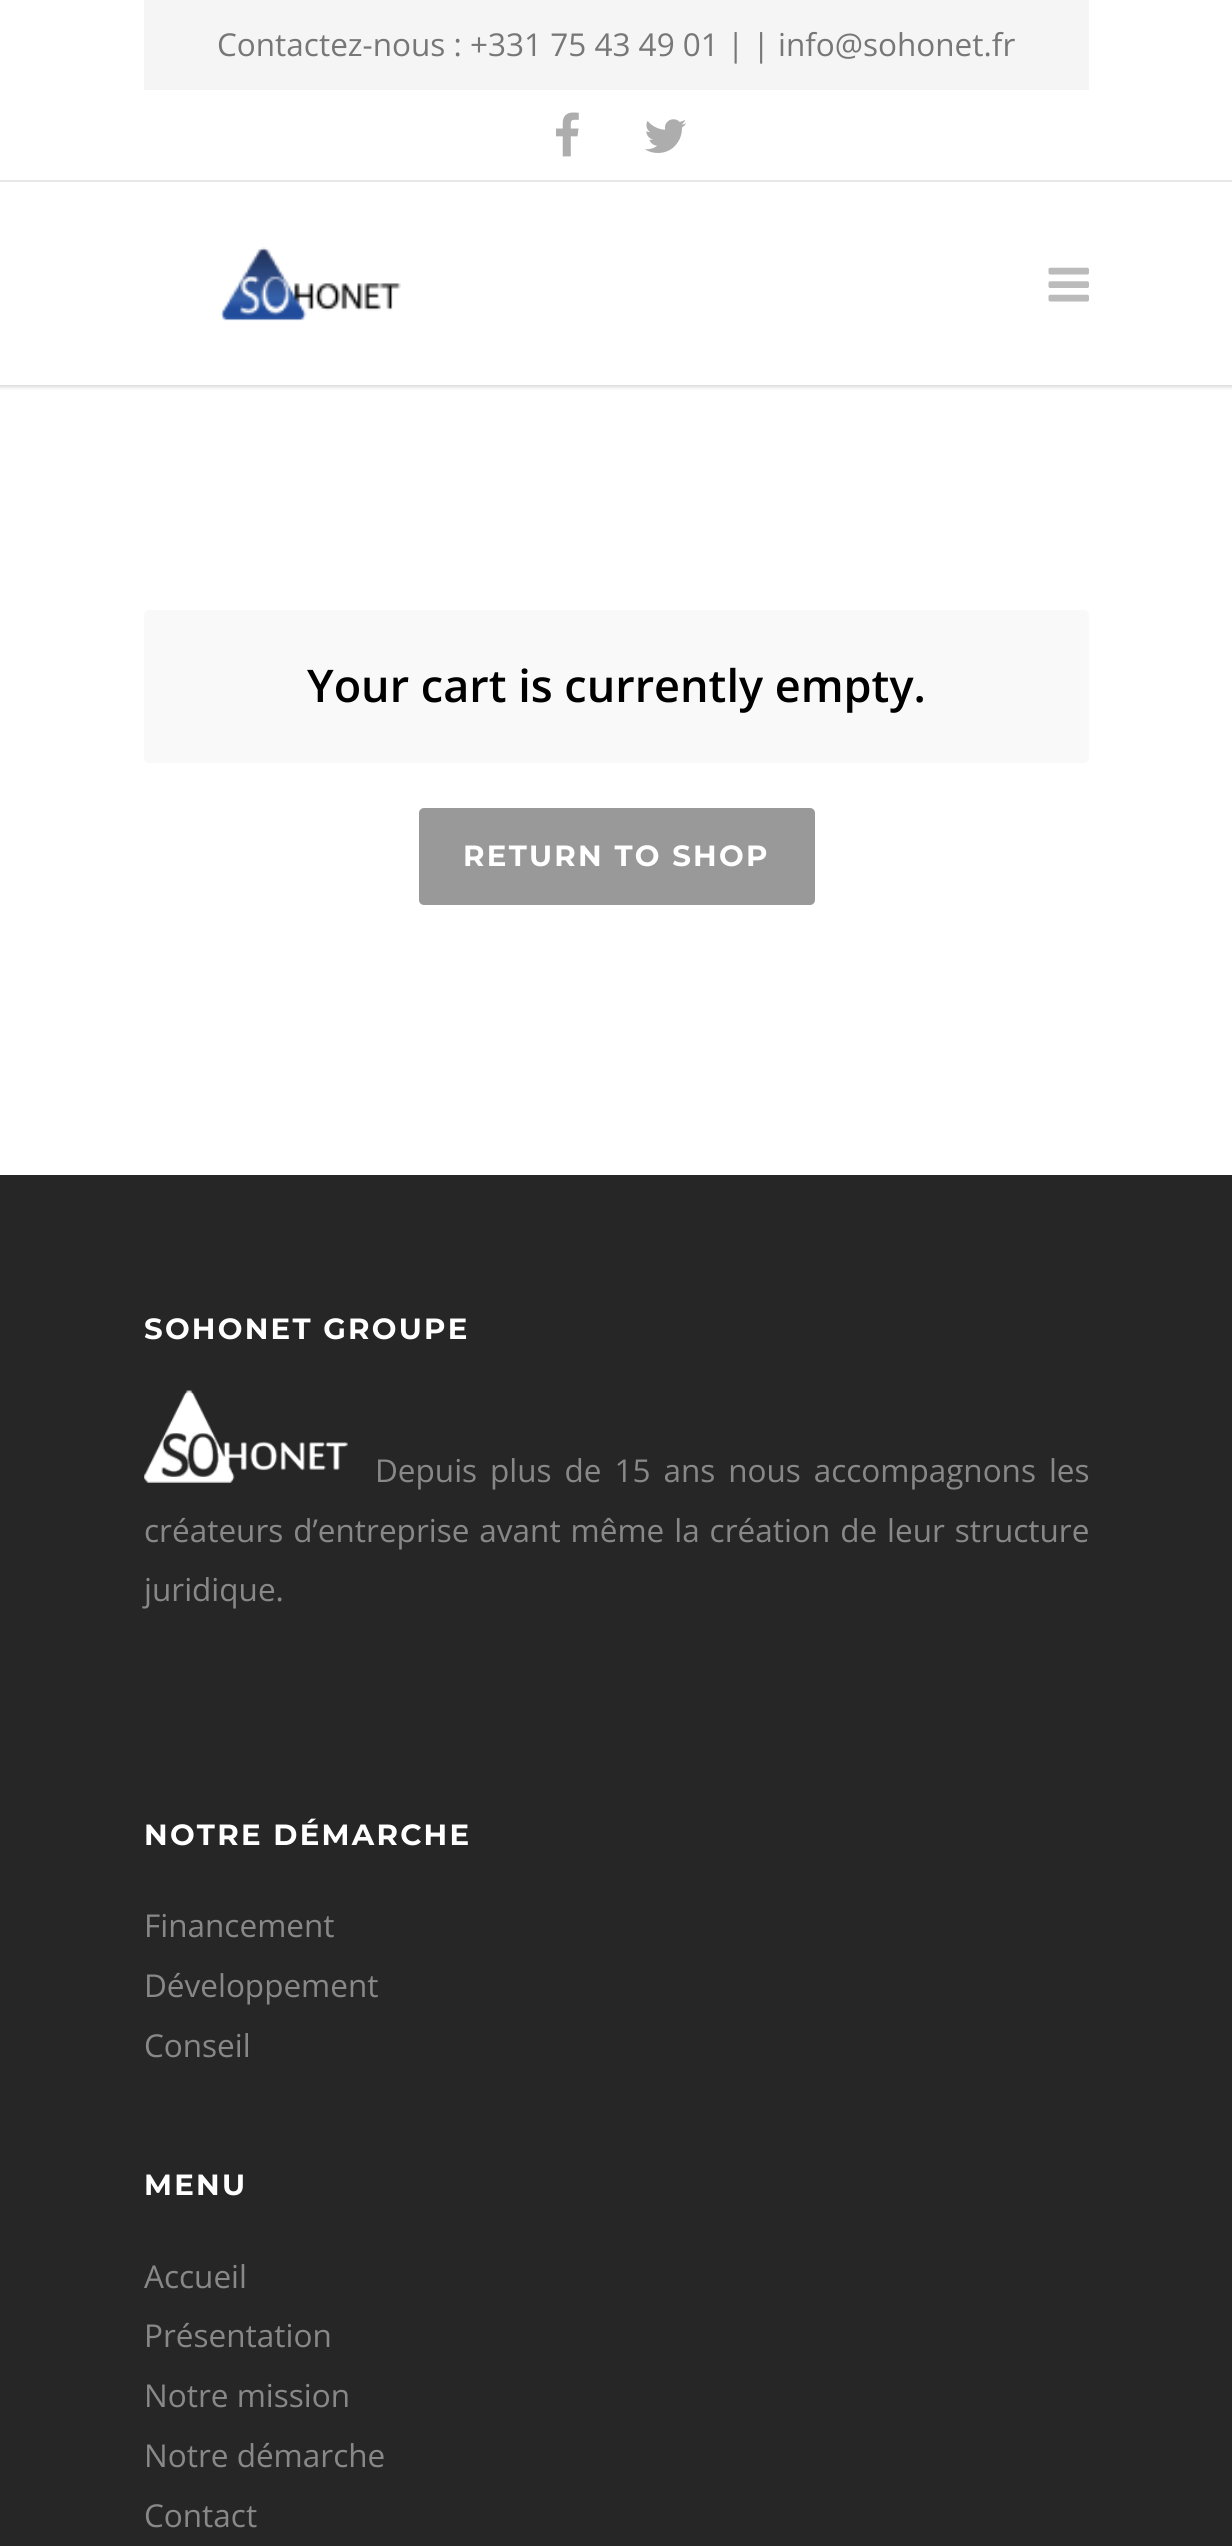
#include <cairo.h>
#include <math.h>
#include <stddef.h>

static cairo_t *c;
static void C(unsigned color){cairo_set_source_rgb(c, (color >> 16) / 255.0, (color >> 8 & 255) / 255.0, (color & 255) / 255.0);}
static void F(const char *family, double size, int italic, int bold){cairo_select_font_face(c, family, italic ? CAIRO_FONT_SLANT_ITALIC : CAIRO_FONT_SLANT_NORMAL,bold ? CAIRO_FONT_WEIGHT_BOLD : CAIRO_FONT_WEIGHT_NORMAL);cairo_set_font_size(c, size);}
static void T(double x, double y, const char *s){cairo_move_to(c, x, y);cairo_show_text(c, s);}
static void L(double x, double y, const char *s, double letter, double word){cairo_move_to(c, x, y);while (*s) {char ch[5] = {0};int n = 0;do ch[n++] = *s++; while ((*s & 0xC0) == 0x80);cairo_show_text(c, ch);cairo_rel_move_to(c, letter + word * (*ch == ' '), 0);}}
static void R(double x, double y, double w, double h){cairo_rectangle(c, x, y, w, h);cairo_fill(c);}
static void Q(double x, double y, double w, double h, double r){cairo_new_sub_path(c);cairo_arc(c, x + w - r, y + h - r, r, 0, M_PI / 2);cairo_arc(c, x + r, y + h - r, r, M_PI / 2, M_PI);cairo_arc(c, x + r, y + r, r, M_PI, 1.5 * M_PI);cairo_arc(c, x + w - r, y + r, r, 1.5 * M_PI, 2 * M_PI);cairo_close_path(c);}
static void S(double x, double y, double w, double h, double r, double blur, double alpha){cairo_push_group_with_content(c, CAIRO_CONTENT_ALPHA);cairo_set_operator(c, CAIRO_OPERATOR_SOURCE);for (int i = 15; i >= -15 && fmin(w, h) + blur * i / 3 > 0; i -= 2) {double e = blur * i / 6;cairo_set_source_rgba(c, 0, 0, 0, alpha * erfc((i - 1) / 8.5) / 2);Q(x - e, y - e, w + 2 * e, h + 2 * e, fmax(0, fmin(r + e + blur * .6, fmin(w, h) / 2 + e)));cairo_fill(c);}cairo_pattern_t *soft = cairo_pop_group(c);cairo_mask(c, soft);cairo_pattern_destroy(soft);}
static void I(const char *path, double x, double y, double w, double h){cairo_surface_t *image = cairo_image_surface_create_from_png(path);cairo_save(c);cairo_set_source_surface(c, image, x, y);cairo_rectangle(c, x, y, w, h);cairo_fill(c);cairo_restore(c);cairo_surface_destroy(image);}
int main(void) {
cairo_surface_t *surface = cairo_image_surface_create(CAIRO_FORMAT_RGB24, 1232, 2546);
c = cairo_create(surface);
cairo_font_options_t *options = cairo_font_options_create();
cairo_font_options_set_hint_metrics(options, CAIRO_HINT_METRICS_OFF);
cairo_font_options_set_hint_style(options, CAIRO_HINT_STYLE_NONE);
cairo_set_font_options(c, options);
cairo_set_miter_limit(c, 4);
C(0xffffff);
cairo_paint(c);
C(0x000000);
S(-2,180,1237,207,0,2,.16);
C(0xffffff);
R(0,177,1232,3);
C(0xe8e8e8);
R(0,181,1232,1);
C(0xf5f5f5);
R(144,0,945,90);
F("Open Sans",31.5,0,0);
C(0x777777);
T(217,56,"Contactez-nous : +331 75 43 49 01 | | info@sohonet.fr");
I("1.png",556,112,23,45);
I("2.png",645,119,41,34);
C(0xffffff);
R(0,182,1232,203);
I("3.png",220,247,181,74);
I("4.png",1048,267,41,35);
C(0xf9f9f9);
Q(144,610,945,153,5);
cairo_fill(c);
F("Open Sans SemiBold",45,0,0);
C(0x000000);
T(307,702,"Your cart is currently empty.");
C(0x999999);
Q(419,808,396,97,5);
cairo_fill(c);
F("Montserrat",29.25,0,1);
C(0xffffff);
L(463,866,"RETURN TO SHOP",2.25,0);
C(0x262626);
R(0,1175,1232,1371);
C(0xffffff);
L(144,1339,"SOHONET GROUPE",2.25,0);
I("5.png",144,1390,204,93);
F("Open Sans",31.5,0,0);
C(0x888888);
L(375,1482,"Depuis plus de 15 ans nous accompagnons les",0,4.75);
L(144,1542,"créateurs d’entreprise avant même la création de leur structure",0,1.75);
T(144,1601,"juridique.");
F("Montserrat",29.25,0,1);
C(0xffffff);
L(144,1845,"NOTRE DÉMARCHE",2.25,0);
F("Open Sans",31.5,0,0);
C(0x888888);
T(144,1937,"Financement");
T(144,1997,"Développement");
T(144,2057,"Conseil");
F("Montserrat",29.25,0,1);
C(0xffffff);
L(144,2195,"MENU",2.25,0);
F("Open Sans",31.5,0,0);
C(0x888888);
T(144,2288,"Accueil");
T(144,2347,"Présentation");
T(144,2407,"Notre mission");
T(144,2467,"Notre démarche");
T(144,2527,"Contact");
cairo_surface_write_to_png(surface, "o.png");
cairo_font_options_destroy(options);
cairo_destroy(c);
cairo_surface_destroy(surface);
return 0;
}
